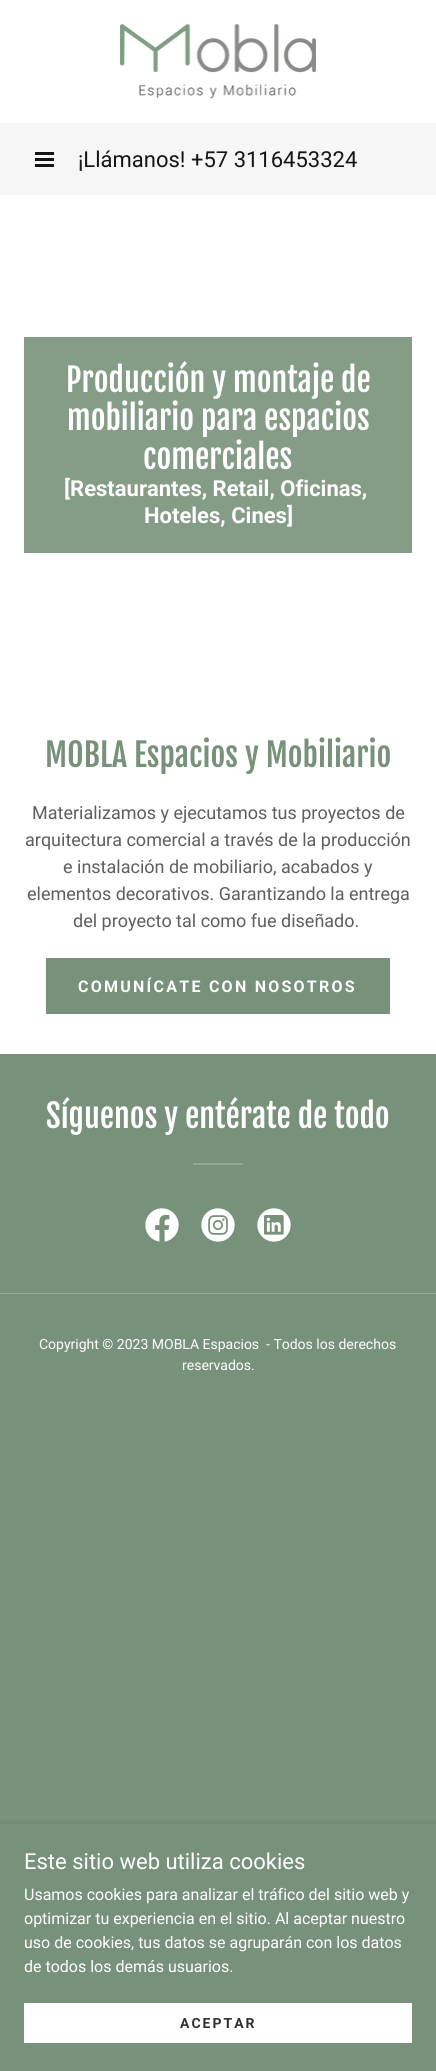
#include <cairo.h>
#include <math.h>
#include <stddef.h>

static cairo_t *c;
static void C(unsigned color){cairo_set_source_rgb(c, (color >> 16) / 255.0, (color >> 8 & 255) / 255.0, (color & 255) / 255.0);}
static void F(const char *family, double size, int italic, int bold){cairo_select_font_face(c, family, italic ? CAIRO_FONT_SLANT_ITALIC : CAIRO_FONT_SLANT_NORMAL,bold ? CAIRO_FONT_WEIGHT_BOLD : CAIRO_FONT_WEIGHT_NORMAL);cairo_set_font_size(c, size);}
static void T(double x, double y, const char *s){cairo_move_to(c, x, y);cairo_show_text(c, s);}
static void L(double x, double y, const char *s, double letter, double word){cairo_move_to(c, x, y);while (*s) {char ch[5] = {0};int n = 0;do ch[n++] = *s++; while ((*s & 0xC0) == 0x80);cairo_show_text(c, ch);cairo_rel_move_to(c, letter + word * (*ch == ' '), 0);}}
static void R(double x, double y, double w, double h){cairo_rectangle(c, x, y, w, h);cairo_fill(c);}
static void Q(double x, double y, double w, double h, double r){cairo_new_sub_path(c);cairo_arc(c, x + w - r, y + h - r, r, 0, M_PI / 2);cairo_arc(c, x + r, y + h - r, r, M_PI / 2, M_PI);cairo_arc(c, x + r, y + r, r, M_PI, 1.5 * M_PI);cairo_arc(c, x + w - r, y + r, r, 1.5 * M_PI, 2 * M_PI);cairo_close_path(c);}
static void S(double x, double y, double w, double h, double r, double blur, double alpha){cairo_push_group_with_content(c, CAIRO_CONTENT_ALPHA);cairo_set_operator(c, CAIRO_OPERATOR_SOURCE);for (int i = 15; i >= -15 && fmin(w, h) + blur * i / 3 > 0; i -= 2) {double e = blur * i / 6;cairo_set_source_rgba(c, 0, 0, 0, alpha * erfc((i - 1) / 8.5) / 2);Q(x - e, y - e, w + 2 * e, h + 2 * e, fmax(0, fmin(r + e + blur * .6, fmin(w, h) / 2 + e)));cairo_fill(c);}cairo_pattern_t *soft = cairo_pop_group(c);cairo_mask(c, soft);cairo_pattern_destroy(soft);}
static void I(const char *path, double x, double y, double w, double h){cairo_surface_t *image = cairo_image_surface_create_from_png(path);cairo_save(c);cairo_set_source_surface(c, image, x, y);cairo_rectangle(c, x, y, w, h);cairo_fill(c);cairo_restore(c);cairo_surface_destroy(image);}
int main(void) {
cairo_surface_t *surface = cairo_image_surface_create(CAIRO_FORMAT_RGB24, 436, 2071);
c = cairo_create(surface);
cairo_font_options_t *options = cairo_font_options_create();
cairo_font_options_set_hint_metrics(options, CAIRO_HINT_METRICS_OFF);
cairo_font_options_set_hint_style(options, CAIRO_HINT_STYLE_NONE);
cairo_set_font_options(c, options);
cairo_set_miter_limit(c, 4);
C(0x77917a);
cairo_paint(c);
C(0xffffff);
R(0,0,436,1054);
I("1.png",120,24,196,75);
C(0xf6f6f6);
R(0,123,436,72);
C(0x151515);
R(35,152,19,3);
R(35,158,19,3);
R(35,164,19,3);
F("Roboto",22,0,0);
T(78,167,"¡Llámanos! +57 3116453324");
C(0x859c87);
R(24,337,388,216);
F("Fjalla One",32,0,0);
C(0xffffff);
T(66,392,"Producción y montaje de");
T(67,430,"mobiliario para espacios");
T(143,469,"comerciales");
F("Roboto",22,0,1);
T(64,496,"[Restaurantes, Retail, Oficinas,");
T(144,523,"Hoteles, Cines]");
F("Fjalla One",32,0,0);
C(0x77917a);
T(45,767,"MOBLA Espacios y Mobiliario");
F("Roboto",18,0,0);
C(0x5e5e5e);
T(32,819,"Materializamos y ejecutamos tus proyectos de");
T(25,846,"arquitectura comercial a través de la producción");
T(63,873,"e instalación de mobiliario, acabados y");
T(27,900,"elementos decorativos. Garantizando la entrega");
T(73,927,"del proyecto tal como fue diseñado.");
C(0x77917a);
R(46,958,344,56);
F("Roboto",16,0,1);
C(0xffffff);
L(78,992,"COMUNÍCATE CON NOSOTROS",2.25,0);
F("Fjalla One",32,0,0);
T(46,1128,"Síguenos y entérate de todo");
C(0x8eac91);
R(193,1163,50,2);
I("2.png",145,1208,34,34);
I("3.png",201,1208,34,34);
I("4.png",257,1208,34,34);
R(0,1293,436,1);
F("Roboto",14,0,0);
C(0xffffff);
T(39,1349,"Copyright © 2023 MOBLA Espacios  - Todos los derechos");
T(182,1370,"reservados.");
C(0x000000);
S(0,1826,436,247,0,3,.3);
C(0x77917a);
R(0,1824,436,247);
F("Roboto",22,0,0);
C(0xffffff);
T(24,1869,"Este sitio web utiliza cookies");
F("Roboto",16,0,0);
T(24,1900,"Usamos cookies para analizar el tráfico del sitio web y");
T(24,1924,"optimizar tu experiencia en el sitio. Al aceptar nuestro");
T(24,1948,"uso de cookies, tus datos se agruparán con los datos");
T(24,1972,"de todos los demás usuarios.");
R(24,2003,388,40);
F("Roboto",14,0,1);
C(0x303030);
L(180,2028,"ACEPTAR",2,0);
cairo_surface_write_to_png(surface, "o.png");
cairo_font_options_destroy(options);
cairo_destroy(c);
cairo_surface_destroy(surface);
return 0;
}
